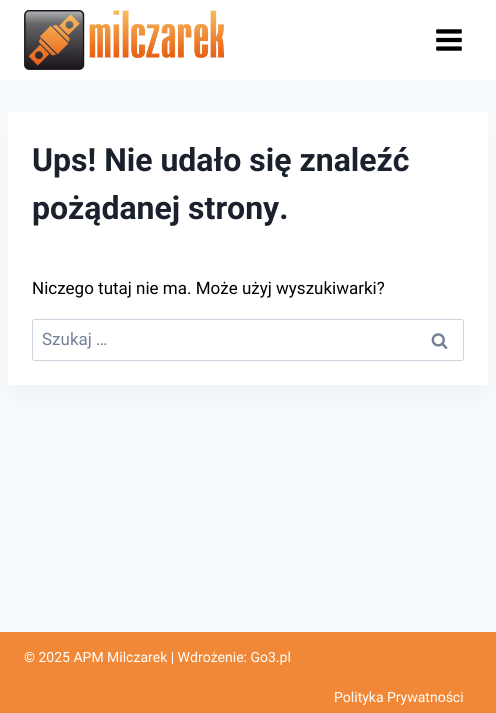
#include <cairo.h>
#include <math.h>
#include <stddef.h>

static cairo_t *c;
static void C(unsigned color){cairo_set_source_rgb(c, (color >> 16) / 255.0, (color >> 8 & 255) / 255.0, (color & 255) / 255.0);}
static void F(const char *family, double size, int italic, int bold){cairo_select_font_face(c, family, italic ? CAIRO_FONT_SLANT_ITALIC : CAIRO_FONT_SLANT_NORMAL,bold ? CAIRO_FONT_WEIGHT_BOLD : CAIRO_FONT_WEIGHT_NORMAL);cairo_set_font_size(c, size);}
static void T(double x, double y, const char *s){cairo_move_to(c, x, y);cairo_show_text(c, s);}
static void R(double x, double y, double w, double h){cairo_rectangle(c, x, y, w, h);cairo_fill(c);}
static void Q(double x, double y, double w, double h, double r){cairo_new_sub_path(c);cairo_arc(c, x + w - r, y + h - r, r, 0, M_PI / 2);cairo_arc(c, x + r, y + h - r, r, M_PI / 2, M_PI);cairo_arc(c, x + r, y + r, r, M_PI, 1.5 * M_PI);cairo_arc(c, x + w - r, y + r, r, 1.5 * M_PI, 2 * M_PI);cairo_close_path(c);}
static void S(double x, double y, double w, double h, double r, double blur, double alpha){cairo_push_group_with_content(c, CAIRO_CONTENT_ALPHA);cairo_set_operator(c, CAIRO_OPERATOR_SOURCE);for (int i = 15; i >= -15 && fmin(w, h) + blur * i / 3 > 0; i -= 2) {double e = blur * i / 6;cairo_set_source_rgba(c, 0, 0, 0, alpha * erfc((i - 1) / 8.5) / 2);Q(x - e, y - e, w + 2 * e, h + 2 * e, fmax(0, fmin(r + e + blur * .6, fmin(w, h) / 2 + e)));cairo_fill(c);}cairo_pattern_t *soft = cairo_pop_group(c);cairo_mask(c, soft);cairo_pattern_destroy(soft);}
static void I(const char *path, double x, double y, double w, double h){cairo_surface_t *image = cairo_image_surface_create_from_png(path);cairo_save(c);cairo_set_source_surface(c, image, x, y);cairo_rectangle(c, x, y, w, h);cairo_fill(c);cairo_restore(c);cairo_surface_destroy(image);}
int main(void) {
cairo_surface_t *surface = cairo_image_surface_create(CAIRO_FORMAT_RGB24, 496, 713);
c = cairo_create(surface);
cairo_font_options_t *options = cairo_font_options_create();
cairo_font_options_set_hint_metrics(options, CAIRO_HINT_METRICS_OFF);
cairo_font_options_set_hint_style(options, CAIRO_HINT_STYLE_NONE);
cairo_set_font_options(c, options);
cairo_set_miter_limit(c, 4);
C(0xf7fafc);
cairo_paint(c);
C(0xffffff);
R(0,0,496,80);
I("1.png",24,10,200,60);
I("2.png",436,29,26,22);
C(0x000000);
S(18,137,460,253,0,12.5,.05);
C(0xffffff);
Q(8,112,480,273,4);
cairo_fill(c);
F("Roboto",32,0,1);
C(0x1a202c);
T(32,171,"Ups! Nie udało się znaleźć");
T(32,219,"pożądanej strony.");
F("Roboto",17,0,0);
C(0x000000);
T(32,294,"Niczego tutaj nie ma. Może użyj wyszukiwarki?");
Q(32.5,319.5,431,41,2.5);
C(0xcbd5e0);
cairo_set_line_width(c,1);
cairo_stroke(c);
C(0x718096);
T(42,345,"Szukaj …");
I("3.png",431,333,17,16);
C(0xf18837);
R(0,632,496,81);
F("Roboto",14,0,0);
C(0xffffff);
T(24,662,"© 2025 APM Milczarek | Wdrożenie: Go3.pl");
T(334,702,"Polityka Prywatności");
cairo_surface_write_to_png(surface, "o.png");
cairo_font_options_destroy(options);
cairo_destroy(c);
cairo_surface_destroy(surface);
return 0;
}
